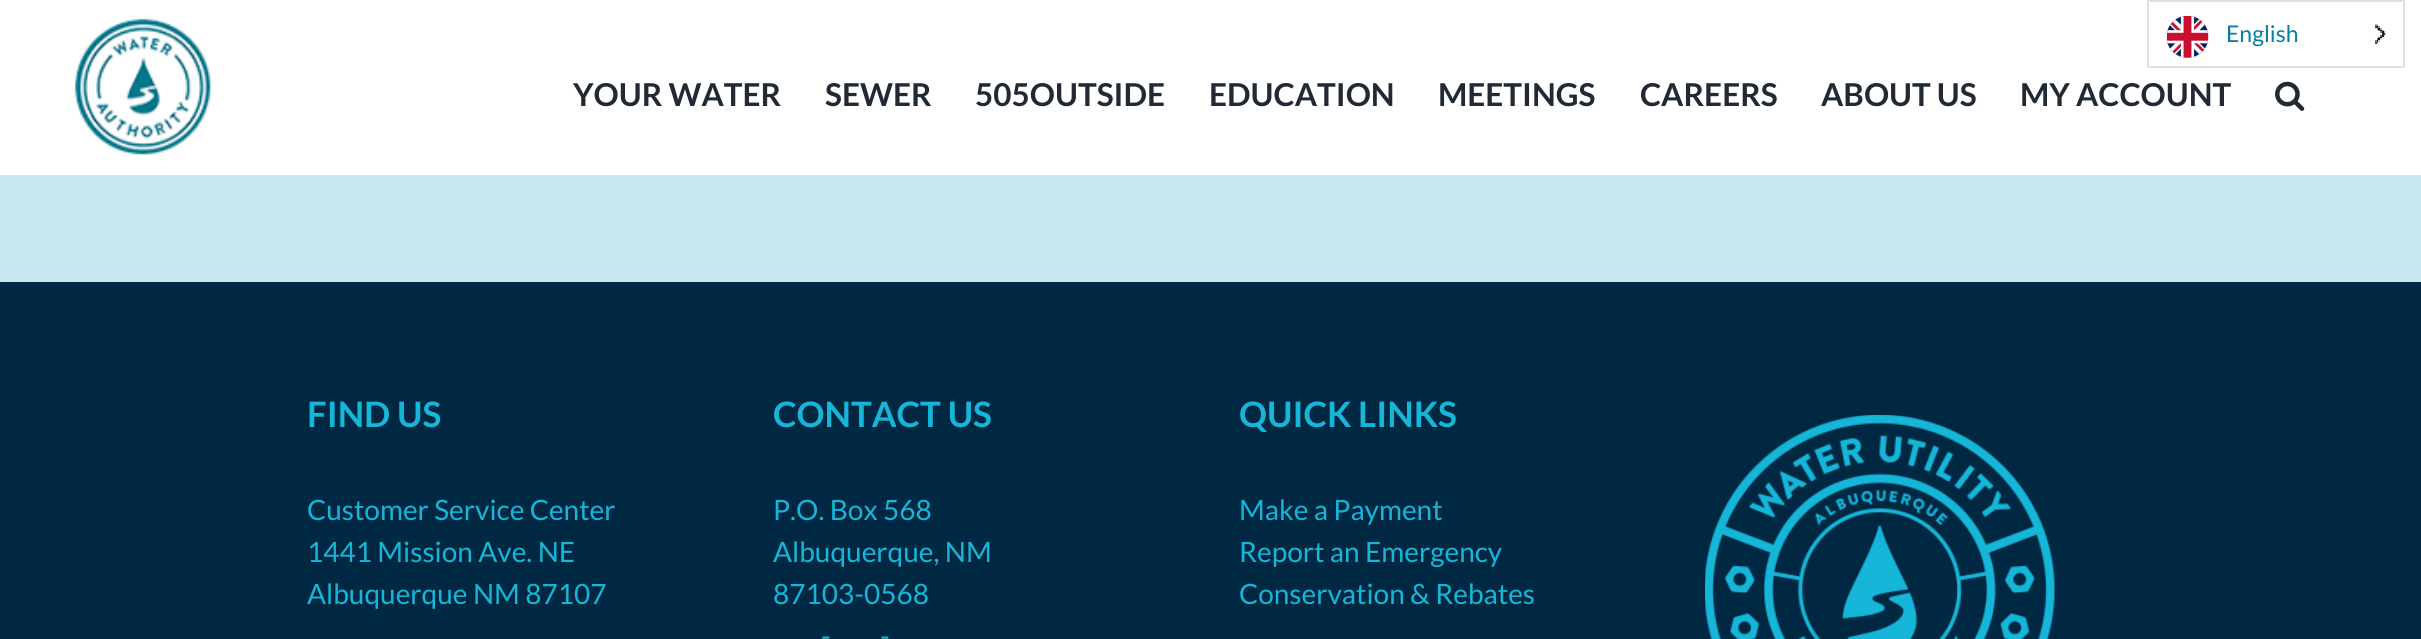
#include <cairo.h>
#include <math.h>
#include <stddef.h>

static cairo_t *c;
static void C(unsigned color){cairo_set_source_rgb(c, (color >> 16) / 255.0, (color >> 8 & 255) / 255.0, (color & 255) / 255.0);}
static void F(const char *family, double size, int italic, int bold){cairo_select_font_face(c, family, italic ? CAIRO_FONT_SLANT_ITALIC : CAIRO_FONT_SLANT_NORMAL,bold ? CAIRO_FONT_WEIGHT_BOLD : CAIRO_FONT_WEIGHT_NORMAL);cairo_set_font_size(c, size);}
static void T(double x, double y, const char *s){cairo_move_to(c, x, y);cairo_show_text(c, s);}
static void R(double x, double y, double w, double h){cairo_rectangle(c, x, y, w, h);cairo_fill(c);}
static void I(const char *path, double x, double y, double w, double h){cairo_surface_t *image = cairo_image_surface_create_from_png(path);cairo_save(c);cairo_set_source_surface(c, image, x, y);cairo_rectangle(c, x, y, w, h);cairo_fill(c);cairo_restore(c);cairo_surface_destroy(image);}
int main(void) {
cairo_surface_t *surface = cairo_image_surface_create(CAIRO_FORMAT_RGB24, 2421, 639);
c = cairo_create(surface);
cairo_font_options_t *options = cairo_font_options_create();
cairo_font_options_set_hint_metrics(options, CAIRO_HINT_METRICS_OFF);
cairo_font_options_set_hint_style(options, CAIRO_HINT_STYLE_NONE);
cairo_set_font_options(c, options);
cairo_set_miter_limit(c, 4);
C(0xc7e8ef);
cairo_paint(c);
C(0xffffff);
R(0,0,2421,175);
cairo_rectangle(c,2148,1,256,66);
C(0xe0e0e0);
cairo_stroke(c);
I("1.png",2167,16,42,42);
F("Lato",23,0,0);
C(0x0080a6);
T(2226,42,"English");
I("2.png",2375,24,11,20);
I("3.png",74,18,137,137);
F("Lato",31.5,0,1);
C(0x212934);
T(573,106,"YOUR WATER");
T(825,106,"SEWER");
T(975,106,"505OUTSIDE");
T(1209,106,"EDUCATION");
T(1438,106,"MEETINGS");
T(1640,106,"CAREERS");
T(1821,106,"ABOUT US");
T(2020,106,"MY ACCOUNT");
I("4.png",2275,81,30,30);
C(0x012842);
R(0,282,2421,357);
F("Lato",35,0,1);
C(0x16b6d9);
T(307,427,"FIND US");
F("Lato",28,0,0);
T(307,520,"Customer Service Center");
T(307,562,"1441 Mission Ave. NE");
T(307,604,"Albuquerque NM 87107");
F("Lato",35,0,1);
T(773,427,"CONTACT US");
F("Lato",28,0,0);
T(773,520,"P.O. Box 568");
T(773,562,"Albuquerque, NM");
T(773,604,"87103-0568");
T(821,646,"-");
T(880,646,"-");
F("Lato",35,0,1);
T(1239,427,"QUICK LINKS");
F("Lato",28,0,0);
T(1239,520,"Make a Payment");
T(1239,562,"Report an Emergency");
T(1239,604,"Conservation & Rebates");
I("5.png",1705,415,350,224);
cairo_surface_write_to_png(surface, "o.png");
cairo_font_options_destroy(options);
cairo_destroy(c);
cairo_surface_destroy(surface);
return 0;
}
